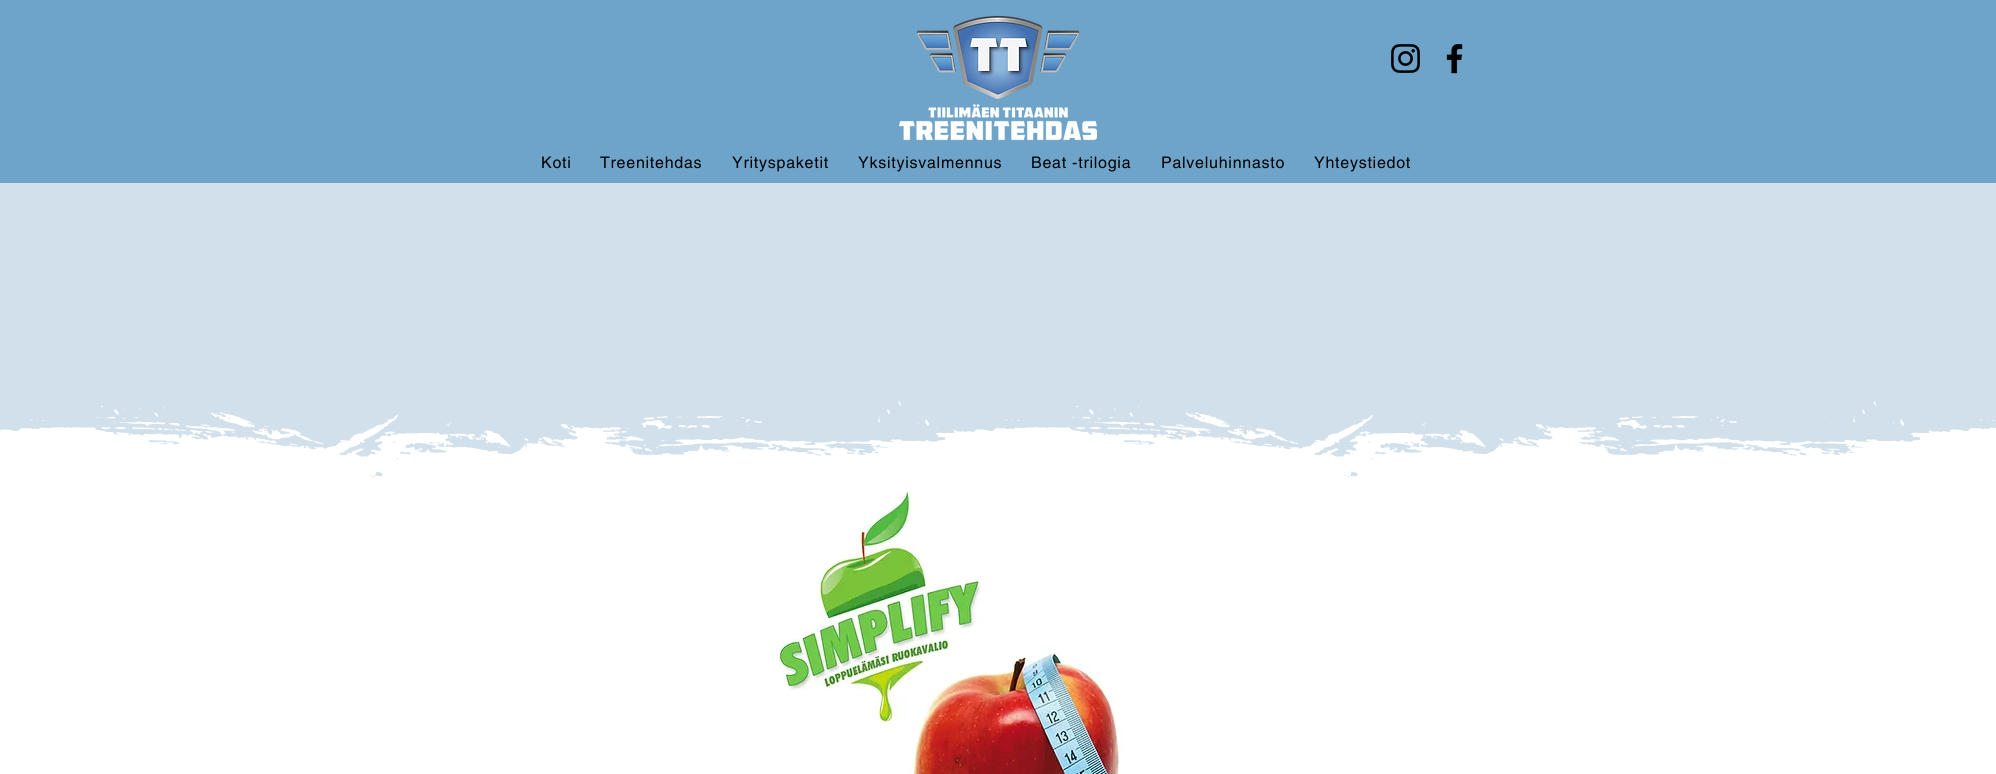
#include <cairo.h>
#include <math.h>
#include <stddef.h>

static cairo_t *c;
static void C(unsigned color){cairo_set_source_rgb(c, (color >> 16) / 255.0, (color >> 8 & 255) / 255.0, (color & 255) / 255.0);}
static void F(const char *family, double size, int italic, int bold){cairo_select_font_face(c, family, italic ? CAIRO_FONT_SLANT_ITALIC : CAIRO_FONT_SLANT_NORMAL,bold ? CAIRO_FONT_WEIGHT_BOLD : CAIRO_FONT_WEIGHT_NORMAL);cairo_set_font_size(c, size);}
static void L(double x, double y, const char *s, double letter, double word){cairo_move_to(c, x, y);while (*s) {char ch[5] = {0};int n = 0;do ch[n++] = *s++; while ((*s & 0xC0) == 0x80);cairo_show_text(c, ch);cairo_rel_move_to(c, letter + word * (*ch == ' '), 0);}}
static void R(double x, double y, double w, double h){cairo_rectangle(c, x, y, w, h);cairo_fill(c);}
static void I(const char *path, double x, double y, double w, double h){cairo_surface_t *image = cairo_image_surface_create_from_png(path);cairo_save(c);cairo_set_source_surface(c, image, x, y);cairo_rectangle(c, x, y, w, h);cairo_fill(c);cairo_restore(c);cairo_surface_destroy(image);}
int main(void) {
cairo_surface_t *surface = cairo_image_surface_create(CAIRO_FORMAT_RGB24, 1996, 774);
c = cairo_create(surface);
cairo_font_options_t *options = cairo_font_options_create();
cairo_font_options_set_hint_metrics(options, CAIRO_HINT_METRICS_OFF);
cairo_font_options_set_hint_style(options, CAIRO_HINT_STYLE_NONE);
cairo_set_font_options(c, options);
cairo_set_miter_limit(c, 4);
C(0xffffff);
cairo_paint(c);
C(0x6ea4ca);
R(0,0,1996,183);
I("1.png",899,15,198,126);
I("2.png",1391,44,29,29);
I("3.png",1446,44,17,30);
F("helvetica",16,0,0);
C(0x000000);
L(541,168,"Koti",.75,0);
L(600,168,"Treenitehdas",.75,0);
L(732,168,"Yrityspaketit",.75,0);
L(858,168,"Yksityisvalmennus",.75,0);
L(1031,168,"Beat -trilogia",.75,0);
L(1161,168,"Palveluhinnasto",.75,0);
L(1314,168,"Yhteystiedot",.75,0);
C(0xd1e0eb);
R(0,183,1996,295);
I("4.png",0,401,1996,81);
I("5.png",778,490,345,284);
cairo_surface_write_to_png(surface, "o.png");
cairo_font_options_destroy(options);
cairo_destroy(c);
cairo_surface_destroy(surface);
return 0;
}
